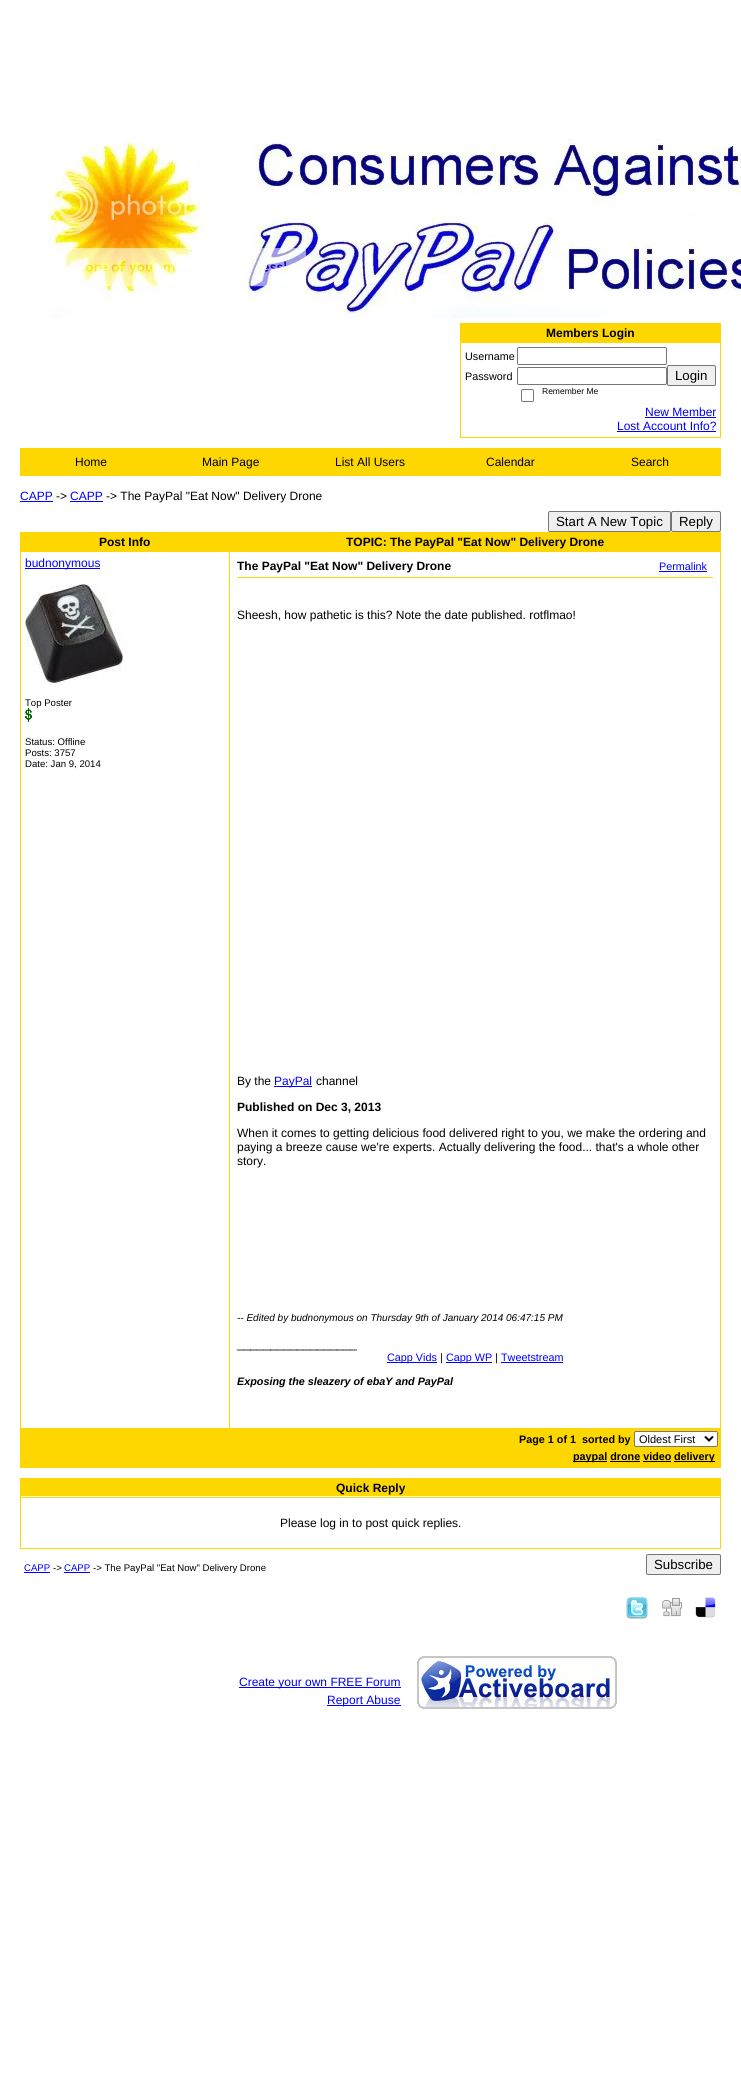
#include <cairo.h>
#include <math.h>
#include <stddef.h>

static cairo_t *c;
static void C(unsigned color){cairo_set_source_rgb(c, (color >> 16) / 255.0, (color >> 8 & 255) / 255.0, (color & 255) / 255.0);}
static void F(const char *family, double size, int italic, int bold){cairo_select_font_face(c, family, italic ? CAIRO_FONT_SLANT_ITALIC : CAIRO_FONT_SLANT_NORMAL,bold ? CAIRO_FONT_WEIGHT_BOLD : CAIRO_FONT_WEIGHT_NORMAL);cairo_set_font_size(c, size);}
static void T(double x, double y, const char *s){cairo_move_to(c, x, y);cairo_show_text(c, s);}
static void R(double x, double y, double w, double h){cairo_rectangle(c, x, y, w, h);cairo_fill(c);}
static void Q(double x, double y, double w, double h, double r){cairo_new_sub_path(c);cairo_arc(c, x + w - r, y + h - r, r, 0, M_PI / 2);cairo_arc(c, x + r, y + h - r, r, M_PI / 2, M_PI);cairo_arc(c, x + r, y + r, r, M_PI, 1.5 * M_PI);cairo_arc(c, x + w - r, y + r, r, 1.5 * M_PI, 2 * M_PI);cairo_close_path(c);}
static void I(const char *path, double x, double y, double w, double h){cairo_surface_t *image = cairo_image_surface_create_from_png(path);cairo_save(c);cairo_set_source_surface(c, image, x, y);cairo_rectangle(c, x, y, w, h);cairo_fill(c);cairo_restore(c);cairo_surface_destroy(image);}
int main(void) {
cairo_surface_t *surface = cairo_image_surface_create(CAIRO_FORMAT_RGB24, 741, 2082);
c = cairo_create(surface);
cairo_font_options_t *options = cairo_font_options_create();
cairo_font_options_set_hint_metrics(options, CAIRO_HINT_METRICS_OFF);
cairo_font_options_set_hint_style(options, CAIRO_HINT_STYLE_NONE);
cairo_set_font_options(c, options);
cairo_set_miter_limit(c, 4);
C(0xffffff);
cairo_paint(c);
I("1.png",47,138,694,180);
C(0xffd700);
R(460,323,261,1);
R(720,323,1,115);
R(460,437,261,1);
R(460,323,1,115);
R(461,324,259,18);
R(460,342,261,1);
F("Liberation Sans",12,0,1);
C(0x000000);
T(546,337,"Members Login");
F("Liberation Sans",10.8,0,0);
T(465,360,"Username");
Q(517.5,347.5,149,17,1.5);
C(0x767676);
cairo_set_line_width(c,1);
cairo_stroke(c);
C(0x000000);
T(465,380,"Password");
Q(517.5,367.5,149,17,1.5);
C(0x767676);
cairo_stroke(c);
C(0xefefef);
Q(667.5,365.5,48,20,1.5);
cairo_fill_preserve(c);
C(0x767676);
cairo_stroke(c);
F("Liberation Sans",13.25,0,0);
C(0x000000);
T(675,380,"Login");
Q(521.5,389.5,12,12,1.5);
C(0x767676);
cairo_stroke(c);
F("Liberation Sans",8.5,0,0);
C(0x000000);
T(542,394,"Remember Me");
F("Liberation Sans",12,0,0);
C(0x0000ff);
T(645,416,"New Member");
R(645,417,71,1);
T(617,430,"Lost Account Info?");
R(617,431,99,1);
cairo_rectangle(c,20.5,448.5,700,27);
C(0xffd700);
cairo_stroke(c);
R(21,449,699,26);
C(0x000000);
T(75,466,"Home");
T(202,466,"Main Page");
T(335,466,"List All Users");
T(486,466,"Calendar");
T(631,466,"Search");
C(0x0000ff);
T(20,500,"CAPP");
R(20,501,33,1);
C(0x000000);
T(56,500,"->");
C(0x0000ff);
T(70,500,"CAPP");
R(70,501,33,1);
C(0x000000);
T(106,500,"-> The PayPal \"Eat Now\" Delivery Drone");
C(0xefefef);
Q(548.5,511.5,122,20,1.5);
cairo_fill_preserve(c);
C(0x767676);
cairo_stroke(c);
F("Liberation Sans",13.25,0,0);
C(0x000000);
T(556,526,"Start A New Topic");
C(0xefefef);
Q(671.5,511.5,49,20,1.5);
cairo_fill_preserve(c);
C(0x767676);
cairo_stroke(c);
C(0x000000);
T(679,526,"Reply");
C(0xffd700);
R(20,532,701,1);
R(720,532,1,936);
R(20,1467,701,1);
R(20,532,1,936);
R(21,533,208,18);
R(229,551,492,1);
R(21,1428,699,39);
R(229,551,1,878);
R(20,551,210,1);
R(229,532,1,20);
F("Liberation Sans",12,0,1);
C(0x000000);
T(99,546,"Post Info");
C(0xffd700);
R(230,533,490,18);
C(0x000000);
T(346,546,"TOPIC: The PayPal \"Eat Now\" Delivery Drone");
C(0x0000ff);
R(25,568,75,1);
F("Liberation Sans",12,0,0);
T(25,567,"budnonymous");
I("2.png",25,584,98,99);
F("Liberation Sans",9.6,0,0);
C(0x000000);
T(25,706,"Top Poster");
I("3.png",25,708,7,14);
T(25,745,"Status: Offline");
T(25,756,"Posts: 3757");
T(25,767,"Date: Jan 9, 2014");
F("Liberation Sans",12,0,1);
T(237,570,"The PayPal \"Eat Now\" Delivery Drone");
F("Liberation Sans",10.8,0,0);
C(0x0000ff);
T(659,570,"Permalink");
R(659,571,48,1);
C(0xffd700);
R(237,577,476,1);
F("Liberation Sans",12,0,0);
C(0x000000);
T(237,619,"Sheesh, how pathetic is this? Note the date published. rotflmao!");
T(237,1085,"By the");
C(0x0000ff);
R(274,1086,38,1);
T(274,1085,"PayPal");
C(0x000000);
T(316,1085,"channel");
F("Liberation Sans",12,0,1);
T(237,1111,"Published on Dec 3, 2013");
F("Liberation Sans",12,0,0);
T(237,1137,"When it comes to getting delicious food delivered right to you, we make the ordering and");
T(237,1151,"paying a breeze cause we're experts. Actually delivering the food... that's a whole other");
T(237,1165,"story.");
F("Liberation Sans",10,1,0);
T(237,1321,"-- Edited by budnonymous on Thursday 9th of January 2014 06:47:15 PM");
F("Liberation Sans",12,0,0);
T(237,1348,"__________________");
C(0x0000ff);
R(387,1362,50,1);
F("Liberation Sans",10.8,0,0);
T(387,1361,"Capp Vids");
C(0x000000);
T(440,1361,"|");
C(0x0000ff);
R(446,1362,46,1);
T(446,1361,"Capp WP");
C(0x000000);
T(495,1361,"|");
C(0x0000ff);
T(501,1361,"Tweetstream");
R(501,1362,62,1);
F("Liberation Sans",10.8,1,1);
C(0x000000);
T(237,1385,"Exposing the sleazery of ebaY and PayPal");
F("Liberation Sans",10.8,0,1);
T(519,1443,"Page 1 of 1");
T(582,1443,"sorted by");
C(0xffffff);
Q(634.5,1431.5,83,15,1.5);
cairo_fill_preserve(c);
C(0x767676);
cairo_stroke(c);
cairo_new_path(c);
cairo_move_to(c,705,1436.5);
cairo_line_to(c,709,1440.5);
cairo_line_to(c,713,1436.5);
C(0x000000);
cairo_set_line_width(c,2);
cairo_stroke(c);
F("Liberation Sans",11,0,0);
T(639,1443,"Oldest First");
R(573,1461,34,1);
F("Liberation Sans",10.8,0,1);
T(573,1460,"paypal drone video");
R(610,1461,30,1);
R(643,1461,28,1);
R(674,1461,41,1);
T(674,1460,"delivery");
C(0xffd700);
R(20,1478,701,1);
R(720,1478,1,71);
R(20,1548,701,1);
R(20,1478,1,71);
R(21,1479,699,17);
R(20,1497,701,1);
F("Liberation Sans",12,0,1);
C(0x000000);
T(336,1492,"Quick Reply");
F("Liberation Sans",12,0,0);
T(280,1527,"Please log in to post quick replies.");
F("Liberation Sans",9.6,0,0);
C(0x0000ff);
T(24,1571,"CAPP");
R(24,1572,26,1);
C(0x000000);
T(53,1571,"->");
C(0x0000ff);
T(64,1571,"CAPP");
R(64,1572,26,1);
C(0x000000);
T(93,1571,"-> The PayPal \"Eat Now\" Delivery Drone");
C(0xefefef);
Q(646.5,1554.5,74,20,1.5);
cairo_fill_preserve(c);
C(0x767676);
cairo_set_line_width(c,1);
cairo_stroke(c);
F("Liberation Sans",13.25,0,0);
C(0x000000);
T(654,1569,"Subscribe");
I("4.png",626,1597,22,22);
I("5.png",662,1598,20,19);
I("6.png",695,1597,21,21);
C(0x0000ff);
R(239,1687,162,1);
F("Liberation Sans",12,0,0);
T(239,1686,"Create your own FREE Forum");
R(327,1705,74,1);
T(327,1704,"Report Abuse");
I("7.png",417,1656,200,53);
cairo_surface_write_to_png(surface, "o.png");
cairo_font_options_destroy(options);
cairo_destroy(c);
cairo_surface_destroy(surface);
return 0;
}
